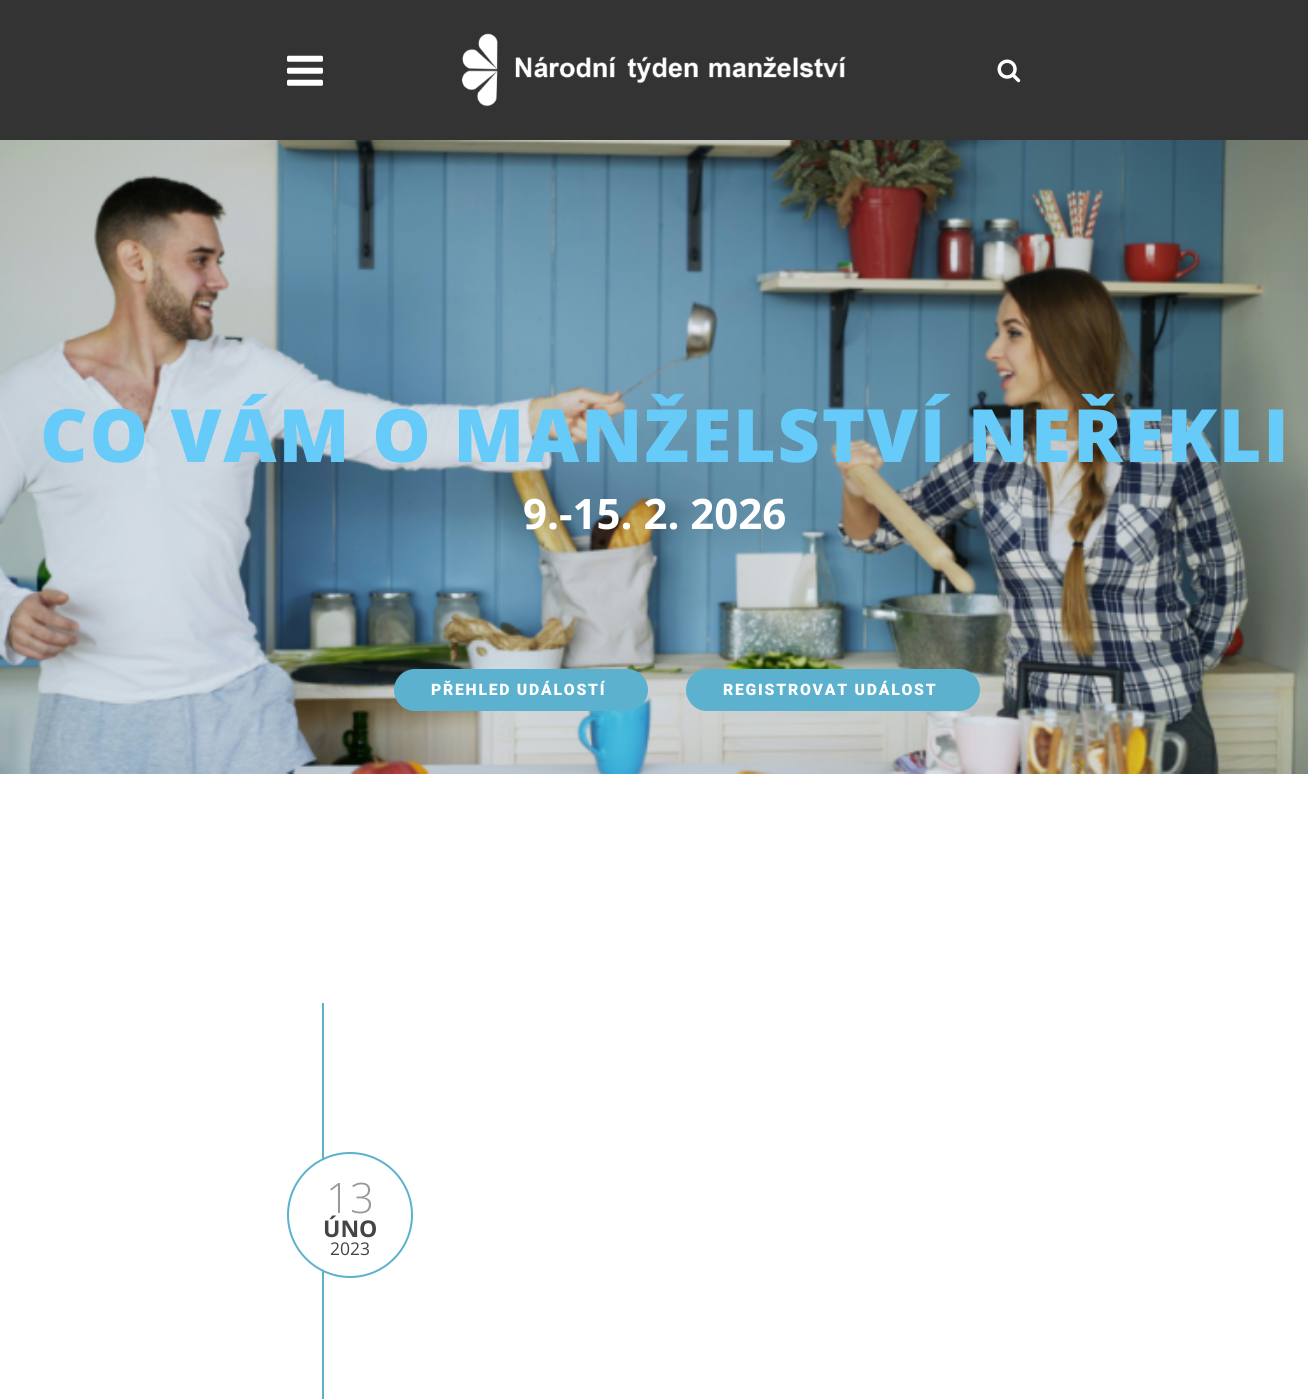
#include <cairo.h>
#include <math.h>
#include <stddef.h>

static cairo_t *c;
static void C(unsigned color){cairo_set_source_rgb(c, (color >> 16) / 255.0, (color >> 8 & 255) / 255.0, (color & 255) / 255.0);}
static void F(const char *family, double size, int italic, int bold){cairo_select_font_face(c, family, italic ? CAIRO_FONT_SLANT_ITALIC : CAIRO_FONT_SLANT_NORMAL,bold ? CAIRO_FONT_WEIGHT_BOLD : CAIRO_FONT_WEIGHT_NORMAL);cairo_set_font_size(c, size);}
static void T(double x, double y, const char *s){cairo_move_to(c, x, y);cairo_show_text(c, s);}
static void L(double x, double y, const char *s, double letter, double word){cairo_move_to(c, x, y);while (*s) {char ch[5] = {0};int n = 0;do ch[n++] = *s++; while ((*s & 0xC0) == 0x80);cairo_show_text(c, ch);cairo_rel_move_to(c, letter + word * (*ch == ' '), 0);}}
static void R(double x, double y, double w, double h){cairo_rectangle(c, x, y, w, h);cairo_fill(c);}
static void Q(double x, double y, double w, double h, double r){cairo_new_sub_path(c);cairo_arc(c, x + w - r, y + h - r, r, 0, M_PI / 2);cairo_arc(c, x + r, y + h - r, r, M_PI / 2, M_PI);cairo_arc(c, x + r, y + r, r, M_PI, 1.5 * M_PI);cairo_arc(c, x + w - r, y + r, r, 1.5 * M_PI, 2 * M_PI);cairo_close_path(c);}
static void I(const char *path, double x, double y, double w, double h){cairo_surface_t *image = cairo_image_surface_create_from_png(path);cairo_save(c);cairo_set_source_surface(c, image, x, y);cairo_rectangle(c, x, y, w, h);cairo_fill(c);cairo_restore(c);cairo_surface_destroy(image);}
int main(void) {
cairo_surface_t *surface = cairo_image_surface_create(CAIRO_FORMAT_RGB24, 1308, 1399);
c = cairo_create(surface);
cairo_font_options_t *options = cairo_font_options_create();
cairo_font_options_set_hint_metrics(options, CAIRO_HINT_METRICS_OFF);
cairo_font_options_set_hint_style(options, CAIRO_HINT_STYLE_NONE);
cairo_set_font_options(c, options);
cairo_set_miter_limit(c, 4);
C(0xffffff);
cairo_paint(c);
C(0x333333);
R(0,0,1308,140);
I("1.png",287,55,36,31);
I("2.png",462,33,384,74);
I("3.png",997,59,24,24);
I("4.png",0,140,1308,634);
F("Open Sans ExtraBold",73.5,0,0);
C(0x66cbf9);
L(40,462,"CO VÁM O MANŽELSTVÍ NEŘEKLI",1.75,0);
F("Open Sans",42,0,1);
C(0xffffff);
T(523,529,"9.-15. 2. 2026");
C(0x5cb1ce);
Q(394,669,254,42,21);
cairo_fill(c);
F("Roboto Black",15.75,0,0);
C(0xffffff);
L(431,695,"PŘEHLED UDÁLOSTÍ",1.75,0);
C(0x5cb1ce);
Q(686,669,294,42,21);
cairo_fill(c);
C(0xffffff);
L(723,695,"REGISTROVAT UDÁLOST",1.75,0);
C(0x5cb1cd);
R(322,1003,2,396);
C(0xffffff);
cairo_new_path(c);
cairo_arc(c,350,1215,62,0,2 * M_PI);
cairo_fill_preserve(c);
C(0x5cb1cd);
cairo_stroke(c);
F("Open Sans Light",42,0,0);
C(0x999999);
T(326,1213,"13");
F("Open Sans",23,0,1);
C(0x444444);
T(323,1237,"ÚNO");
F("Open Sans",17.5,0,0);
T(330,1255,"2023");
cairo_surface_write_to_png(surface, "o.png");
cairo_font_options_destroy(options);
cairo_destroy(c);
cairo_surface_destroy(surface);
return 0;
}
